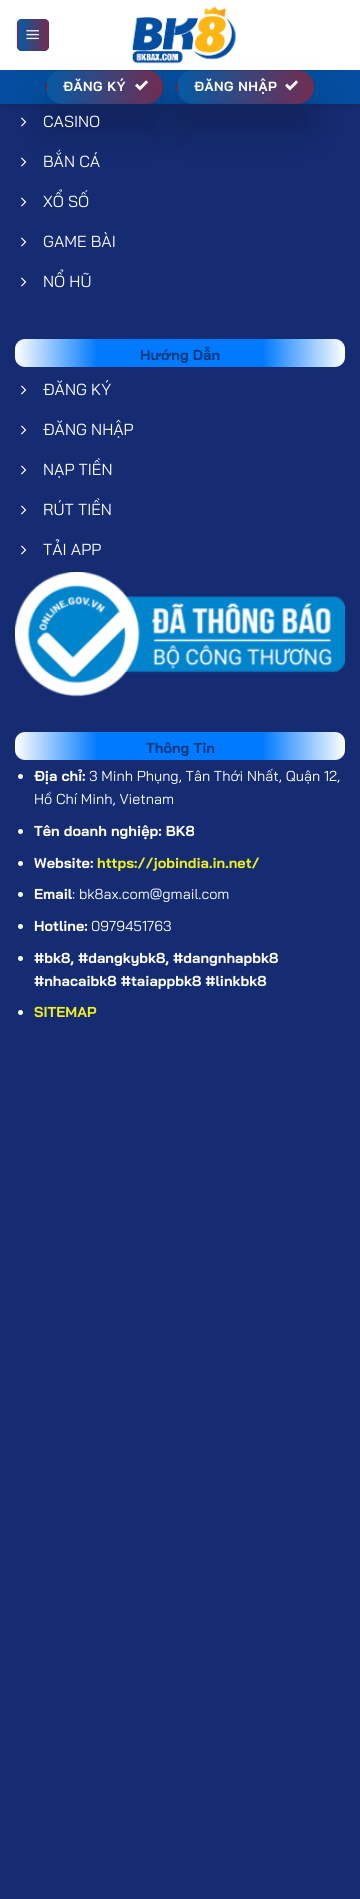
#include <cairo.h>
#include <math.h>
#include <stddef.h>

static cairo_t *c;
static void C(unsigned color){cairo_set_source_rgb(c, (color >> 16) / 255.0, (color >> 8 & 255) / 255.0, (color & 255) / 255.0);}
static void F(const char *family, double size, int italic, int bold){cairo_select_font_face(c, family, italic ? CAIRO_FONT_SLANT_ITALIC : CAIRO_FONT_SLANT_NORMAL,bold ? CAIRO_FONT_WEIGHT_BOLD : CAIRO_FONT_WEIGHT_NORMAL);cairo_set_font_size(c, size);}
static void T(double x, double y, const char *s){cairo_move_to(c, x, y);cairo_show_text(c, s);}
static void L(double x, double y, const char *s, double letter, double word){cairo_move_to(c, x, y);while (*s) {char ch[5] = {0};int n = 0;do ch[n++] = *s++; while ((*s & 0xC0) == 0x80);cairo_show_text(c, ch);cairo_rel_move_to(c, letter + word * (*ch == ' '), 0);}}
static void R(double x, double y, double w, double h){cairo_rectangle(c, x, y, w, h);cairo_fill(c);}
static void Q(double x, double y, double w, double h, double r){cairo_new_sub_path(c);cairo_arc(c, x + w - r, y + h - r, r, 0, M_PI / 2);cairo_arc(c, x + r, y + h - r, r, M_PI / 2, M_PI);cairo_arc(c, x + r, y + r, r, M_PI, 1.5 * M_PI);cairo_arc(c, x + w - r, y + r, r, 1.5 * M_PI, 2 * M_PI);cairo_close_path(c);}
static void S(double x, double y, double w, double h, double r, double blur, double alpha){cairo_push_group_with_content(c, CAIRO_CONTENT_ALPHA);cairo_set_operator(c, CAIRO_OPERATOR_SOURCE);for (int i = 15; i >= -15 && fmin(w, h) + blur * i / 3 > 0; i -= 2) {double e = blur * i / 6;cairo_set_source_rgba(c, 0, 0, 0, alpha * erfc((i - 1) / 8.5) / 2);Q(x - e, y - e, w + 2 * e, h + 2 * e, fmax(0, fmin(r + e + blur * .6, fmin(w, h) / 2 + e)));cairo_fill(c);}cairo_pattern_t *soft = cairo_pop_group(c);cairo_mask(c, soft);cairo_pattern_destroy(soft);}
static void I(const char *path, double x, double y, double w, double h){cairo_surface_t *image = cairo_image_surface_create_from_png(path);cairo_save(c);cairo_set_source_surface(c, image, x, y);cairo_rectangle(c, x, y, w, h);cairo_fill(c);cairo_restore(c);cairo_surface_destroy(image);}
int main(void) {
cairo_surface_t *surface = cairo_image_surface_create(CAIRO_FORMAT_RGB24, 360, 1899);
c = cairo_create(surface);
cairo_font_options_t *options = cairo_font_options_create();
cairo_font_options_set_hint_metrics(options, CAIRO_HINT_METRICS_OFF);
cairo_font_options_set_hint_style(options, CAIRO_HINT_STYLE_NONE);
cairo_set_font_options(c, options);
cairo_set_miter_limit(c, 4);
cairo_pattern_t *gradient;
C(0x152c73);
cairo_paint(c);
I("5.png",21,117,6,10);
C(0x000000);
S(1,1,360,104,0,5,.15);
C(0xffffff);
R(0,0,360,70);
C(0x034ea0);
R(0,70,360,34);
I("5.png",21,157,6,10);
C(0x000000);
S(46,100,117,34,17,20,.2);
C(0x024596);
Q(17,19,32,32,5);
cairo_fill(c);
cairo_save(c);
Q(17,19,32,32,5);
cairo_clip(c);
gradient = cairo_pattern_create_linear(-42,35,18,35);
cairo_pattern_add_color_stop_rgba(gradient,0,0.02,0.353,0.643,1);
cairo_pattern_add_color_stop_rgba(gradient,1,0.867,0,0,1);
cairo_set_source(c,gradient);
cairo_pattern_destroy(gradient);
R(17,19,1,32);
gradient = cairo_pattern_create_linear(18,35,78,35);
cairo_pattern_add_color_stop_rgba(gradient,0,0.02,0.353,0.643,1);
cairo_pattern_add_color_stop_rgba(gradient,1,0.867,0,0,1);
cairo_set_source(c,gradient);
cairo_pattern_destroy(gradient);
cairo_new_path(c);
cairo_move_to(c,18,19);
cairo_line_to(c,44,19);
cairo_curve_to(c,47,19,49,21,49,24);
cairo_line_to(c,49,46);
cairo_curve_to(c,49,49,47,51,44,51);
cairo_line_to(c,18,51);
cairo_close_path(c);
cairo_fill(c);
cairo_restore(c);
cairo_rectangle(c,17.5,19.5,31,31);
cairo_set_source_rgba(c,0,0,0,0.05);
cairo_set_line_width(c,1);
cairo_stroke(c);
I("1.png",26,30,13,10);
C(0x024596);
Q(46,70,117,34,17);
cairo_fill(c);
cairo_save(c);
Q(46,70,117,34,17);
cairo_clip(c);
gradient = cairo_pattern_create_linear(47,87,277,87);
cairo_pattern_add_color_stop_rgba(gradient,0,0.02,0.353,0.643,1);
cairo_pattern_add_color_stop_rgba(gradient,1,0.867,0,0,1);
cairo_set_source(c,gradient);
cairo_pattern_destroy(gradient);
cairo_new_path(c);
cairo_move_to(c,47,70);
cairo_line_to(c,146,70);
cairo_curve_to(c,155.5,70,163,77.5,163,87);
cairo_curve_to(c,163,96.5,155.5,104,146,104);
cairo_line_to(c,47,104);
cairo_close_path(c);
cairo_fill(c);
gradient = cairo_pattern_create_linear(-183,87,47,87);
cairo_pattern_add_color_stop_rgba(gradient,0,0.02,0.353,0.643,1);
cairo_pattern_add_color_stop_rgba(gradient,1,0.867,0,0,1);
cairo_set_source(c,gradient);
cairo_pattern_destroy(gradient);
R(46,81,1,12);
cairo_restore(c);
cairo_rectangle(c,46.5,70.5,116,33);
cairo_set_source_rgba(c,0,0,0,0.05);
cairo_stroke(c);
I("3.png",135,80,14,11);
C(0x000000);
S(177,100,137,34,17,20,.2);
I("2.png",132,6,104,58);
C(0x024596);
Q(177,70,137,34,17);
cairo_fill(c);
cairo_save(c);
Q(177,70,137,34,17);
cairo_clip(c);
gradient = cairo_pattern_create_linear(178,87,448,87);
cairo_pattern_add_color_stop_rgba(gradient,0,0.02,0.353,0.643,1);
cairo_pattern_add_color_stop_rgba(gradient,1,0.867,0,0,1);
cairo_set_source(c,gradient);
cairo_pattern_destroy(gradient);
cairo_new_path(c);
cairo_move_to(c,178,70);
cairo_line_to(c,297,70);
cairo_curve_to(c,306.5,70,314,77.5,314,87);
cairo_curve_to(c,314,96.5,306.5,104,297,104);
cairo_line_to(c,178,104);
cairo_close_path(c);
cairo_fill(c);
gradient = cairo_pattern_create_linear(-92,87,178,87);
cairo_pattern_add_color_stop_rgba(gradient,0,0.02,0.353,0.643,1);
cairo_pattern_add_color_stop_rgba(gradient,1,0.867,0,0,1);
cairo_set_source(c,gradient);
cairo_pattern_destroy(gradient);
R(177,81,1,12);
cairo_restore(c);
cairo_rectangle(c,177.5,70.5,136,33);
cairo_set_source_rgba(c,0,0,0,0.05);
cairo_stroke(c);
cairo_set_source_rgba(c,0.039,0.039,0.039,0.1);
R(15,70,330,1);
F("Bai Jamjuree",13.25,0,1);
C(0xffffff);
L(63,91,"ĐĂNG KÝ",.5,0);
L(194,91,"ĐĂNG NHẬP",.5,0);
I("4.png",285,80,14,11);
F("Bai Jamjuree",16,0,0);
T(43,127,"CASINO");
T(43,167,"BẮN CÁ");
I("5.png",21,197,6,10);
T(43,207,"XỔ SỐ");
I("5.png",21,237,6,10);
T(43,247,"GAME BÀI");
I("5.png",21,277,6,10);
T(43,287,"NỔ HŨ");
gradient = cairo_pattern_create_linear(15,353,345,353);
cairo_pattern_add_color_stop_rgba(gradient,0,1,1,1,1);
cairo_pattern_add_color_stop_rgba(gradient,.25,0,0.478,1,1);
cairo_pattern_add_color_stop_rgba(gradient,.75,0,0.478,1,1);
cairo_pattern_add_color_stop_rgba(gradient,1,1,1,1,1);
cairo_set_source(c,gradient);
cairo_pattern_destroy(gradient);
Q(15,339,330,28,10);
cairo_fill(c);
F("Bai Jamjuree",14.4,0,1);
C(0x01397d);
T(140,360,"Hướng Dẫn");
I("5.png",21,385,6,10);
F("Bai Jamjuree",16,0,0);
C(0xffffff);
T(43,395,"ĐĂNG KÝ");
I("5.png",21,425,6,10);
T(43,435,"ĐĂNG NHẬP");
I("5.png",21,465,6,10);
T(43,475,"NẠP TIỀN");
I("5.png",21,505,6,10);
T(43,515,"RÚT TIỀN");
I("5.png",21,545,6,10);
T(43,555,"TẢI APP");
I("6.png",15,572,330,125);
gradient = cairo_pattern_create_linear(15,746,345,746);
cairo_pattern_add_color_stop_rgba(gradient,0,1,1,1,1);
cairo_pattern_add_color_stop_rgba(gradient,.25,0,0.478,1,1);
cairo_pattern_add_color_stop_rgba(gradient,.75,0,0.478,1,1);
cairo_pattern_add_color_stop_rgba(gradient,1,1,1,1,1);
cairo_set_source(c,gradient);
cairo_pattern_destroy(gradient);
Q(15,732,330,28,10);
cairo_fill(c);
F("Bai Jamjuree",14.4,0,1);
C(0x01397d);
T(146,753,"Thông Tin");
C(0xffffff);
cairo_new_path(c);
cairo_arc(c,20.5,776.5,2.5,0,2 * M_PI);
cairo_fill(c);
T(34,781,"Địa chỉ:");
F("Bai Jamjuree",14.4,0,0);
T(89,781,"3 Minh Phụng, Tân Thới Nhất, Quận 12,");
T(34,804,"Hồ Chí Minh, Vietnam");
cairo_new_path(c);
cairo_arc(c,20.5,831.5,2.5,0,2 * M_PI);
cairo_fill(c);
F("Bai Jamjuree",14.4,0,1);
T(34,836,"Tên doanh nghiệp: BK8");
cairo_new_path(c);
cairo_arc(c,20.5,863.5,2.5,0,2 * M_PI);
cairo_fill(c);
T(34,868,"Website:");
C(0xeeee22);
T(97,868,"https://jobindia.in.net/");
C(0xffffff);
cairo_new_path(c);
cairo_arc(c,20.5,894.5,2.5,0,2 * M_PI);
cairo_fill(c);
T(34,899,"Email");
F("Bai Jamjuree",14.4,0,0);
T(72,899,": bk8ax.com@gmail.com");
cairo_new_path(c);
cairo_arc(c,20.5,926.5,2.5,0,2 * M_PI);
cairo_fill(c);
F("Bai Jamjuree",14.4,0,1);
T(34,931,"Hotline:");
F("Bai Jamjuree",14.4,0,0);
T(91,931,"0979451763");
cairo_new_path(c);
cairo_arc(c,20.5,958.5,2.5,0,2 * M_PI);
cairo_fill(c);
F("Bai Jamjuree",14.4,0,1);
T(34,963,"#bk8, #dangkybk8, #dangnhapbk8");
T(34,986,"#nhacaibk8 #taiappbk8 #linkbk8");
cairo_new_path(c);
cairo_arc(c,20.5,1012.5,2.5,0,2 * M_PI);
cairo_fill(c);
C(0xeeee22);
T(34,1017,"SITEMAP");
cairo_surface_write_to_png(surface, "o.png");
cairo_font_options_destroy(options);
cairo_destroy(c);
cairo_surface_destroy(surface);
return 0;
}
